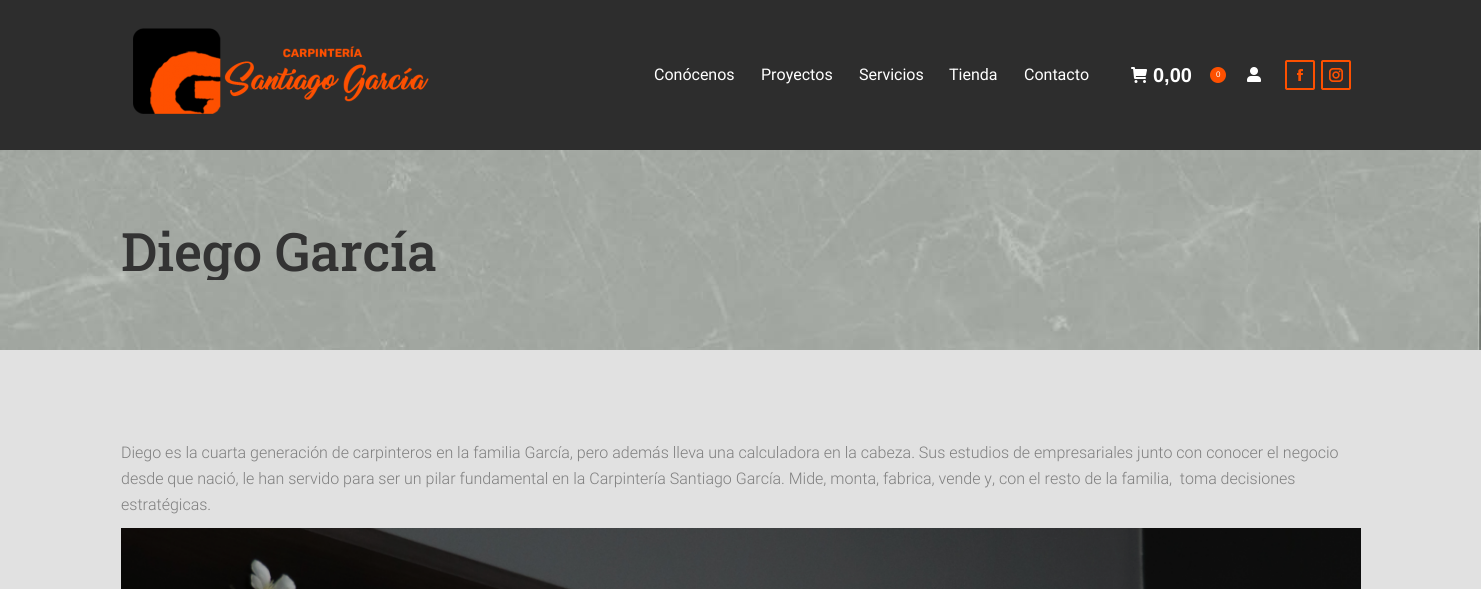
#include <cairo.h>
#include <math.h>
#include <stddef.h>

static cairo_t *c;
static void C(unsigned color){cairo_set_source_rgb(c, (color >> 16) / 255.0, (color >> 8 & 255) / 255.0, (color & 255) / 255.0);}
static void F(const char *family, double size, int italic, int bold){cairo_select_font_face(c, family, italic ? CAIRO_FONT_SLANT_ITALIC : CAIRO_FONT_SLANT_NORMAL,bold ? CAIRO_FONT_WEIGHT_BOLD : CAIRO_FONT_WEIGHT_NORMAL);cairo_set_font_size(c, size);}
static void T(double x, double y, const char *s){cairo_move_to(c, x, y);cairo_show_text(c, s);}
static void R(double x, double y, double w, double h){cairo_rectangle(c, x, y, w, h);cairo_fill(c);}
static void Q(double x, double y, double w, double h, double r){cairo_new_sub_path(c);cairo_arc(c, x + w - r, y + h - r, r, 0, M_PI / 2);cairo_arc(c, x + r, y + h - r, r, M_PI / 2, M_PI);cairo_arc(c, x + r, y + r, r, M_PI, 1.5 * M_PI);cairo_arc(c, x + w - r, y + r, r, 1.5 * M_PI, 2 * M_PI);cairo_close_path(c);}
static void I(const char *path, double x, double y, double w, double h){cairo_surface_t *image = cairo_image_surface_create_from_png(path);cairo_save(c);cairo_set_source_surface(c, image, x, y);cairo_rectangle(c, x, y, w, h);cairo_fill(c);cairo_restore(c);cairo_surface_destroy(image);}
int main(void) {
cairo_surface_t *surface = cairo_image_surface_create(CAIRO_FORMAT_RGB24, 1481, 589);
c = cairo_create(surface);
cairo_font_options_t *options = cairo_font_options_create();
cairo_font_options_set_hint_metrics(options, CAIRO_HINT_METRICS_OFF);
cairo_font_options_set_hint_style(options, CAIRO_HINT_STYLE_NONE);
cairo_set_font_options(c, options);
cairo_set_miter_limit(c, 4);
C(0xe1e1e1);
cairo_paint(c);
C(0x2d2d2d);
R(0,0,1481,150);
I("1.png",133,28,296,86);
F("Roboto",16,0,0);
C(0xffffff);
T(654,80,"Conócenos");
T(761,80,"Proyectos");
T(859,80,"Servicios");
T(949,80,"Tienda");
T(1024,80,"Contacto");
I("2.png",1131,67,16,16);
F("Liberation Sans",20,0,1);
T(1153,82,"0,00");
C(0xfe5000);
cairo_new_path(c);
cairo_arc(c,1218,75,8,0,2 * M_PI);
cairo_fill(c);
F("Liberation Sans",8,0,0);
C(0xffffff);
T(1216,77,"0");
I("3.png",1247,67,14,15);
Q(1286,61,28,28,1);
C(0xfe5000);
cairo_stroke(c);
I("4.png",1297,69,6,12);
Q(1322,61,28,28,1);
cairo_stroke(c);
I("5.png",1329,68,14,14);
I("6.png",0,150,1481,200);
cairo_save(c);
cairo_rectangle(c,121,220,315,60);
cairo_clip(c);
F("Roboto Slab Medium",53,0,0);
C(0x333333);
T(121,271,"Diego García");
cairo_restore(c);
F("Roboto Light",16,0,0);
C(0x7f7f7f);
T(121,458,"Diego es la cuarta generación de carpinteros en la familia García, pero además lleva una calculadora en la cabeza. Sus estudios de empresariales junto con conocer el negocio");
T(121,484,"desde que nació, le han servido para ser un pilar fundamental en la Carpintería Santiago García. Mide, monta, fabrica, vende y, con el resto de la familia,  toma decisiones");
T(121,510,"estratégicas.");
I("7.png",121,528,1240,61);
cairo_surface_write_to_png(surface, "o.png");
cairo_font_options_destroy(options);
cairo_destroy(c);
cairo_surface_destroy(surface);
return 0;
}
